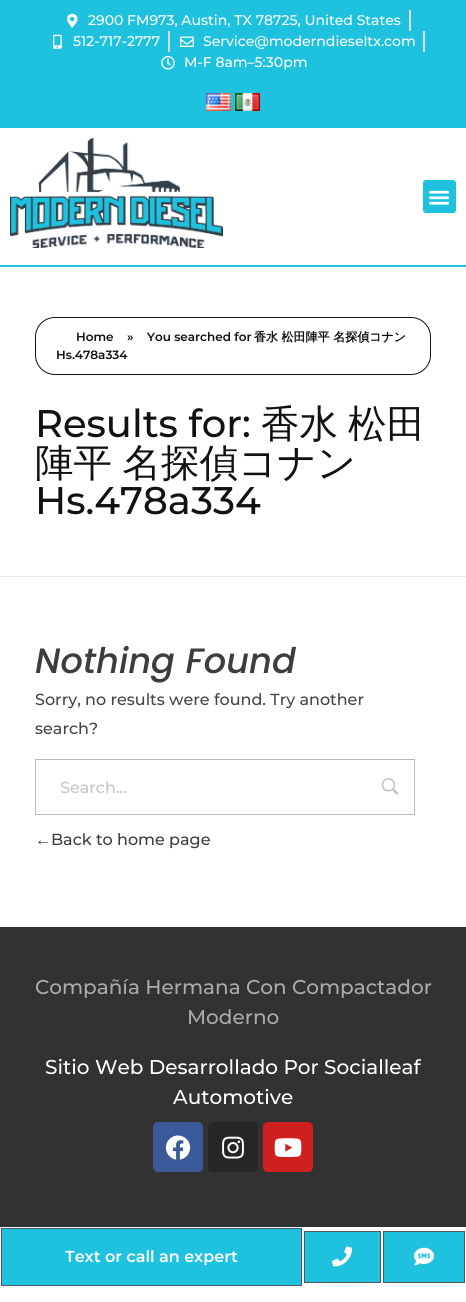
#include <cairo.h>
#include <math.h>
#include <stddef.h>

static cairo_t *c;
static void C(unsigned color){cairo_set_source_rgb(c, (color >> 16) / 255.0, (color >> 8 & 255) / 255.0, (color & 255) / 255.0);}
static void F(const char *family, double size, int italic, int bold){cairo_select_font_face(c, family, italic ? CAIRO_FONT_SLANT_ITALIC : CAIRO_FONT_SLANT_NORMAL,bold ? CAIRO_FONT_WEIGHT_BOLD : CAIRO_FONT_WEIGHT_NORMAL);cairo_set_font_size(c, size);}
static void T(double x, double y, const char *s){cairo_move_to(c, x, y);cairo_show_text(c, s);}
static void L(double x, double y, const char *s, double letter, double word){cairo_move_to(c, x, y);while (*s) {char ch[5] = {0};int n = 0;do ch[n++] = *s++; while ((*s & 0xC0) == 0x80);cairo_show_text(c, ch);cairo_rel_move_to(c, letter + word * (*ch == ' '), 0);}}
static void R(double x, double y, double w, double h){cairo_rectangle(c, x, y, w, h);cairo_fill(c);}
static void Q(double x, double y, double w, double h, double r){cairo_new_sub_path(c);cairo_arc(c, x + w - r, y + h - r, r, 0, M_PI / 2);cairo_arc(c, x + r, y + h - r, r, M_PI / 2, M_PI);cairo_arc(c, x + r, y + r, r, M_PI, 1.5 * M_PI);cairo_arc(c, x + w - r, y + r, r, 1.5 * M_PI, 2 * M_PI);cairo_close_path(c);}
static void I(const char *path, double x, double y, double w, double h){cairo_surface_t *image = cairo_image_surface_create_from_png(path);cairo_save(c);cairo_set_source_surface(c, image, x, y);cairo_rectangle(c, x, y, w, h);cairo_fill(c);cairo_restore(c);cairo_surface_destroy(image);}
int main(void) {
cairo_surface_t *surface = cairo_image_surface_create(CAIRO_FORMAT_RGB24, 466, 1302);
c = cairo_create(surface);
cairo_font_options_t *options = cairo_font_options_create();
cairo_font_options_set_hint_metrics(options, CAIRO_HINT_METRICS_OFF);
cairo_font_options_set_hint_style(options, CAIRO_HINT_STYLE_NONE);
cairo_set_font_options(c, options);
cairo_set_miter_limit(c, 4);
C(0xffffff);
cairo_paint(c);
C(0x1fc2de);
R(0,0,466,128);
I("1.png",67,13,11,15);
F("Montserrat Medium",14,0,0);
C(0xffffff);
T(88,25,"2900 FM973, Austin, TX 78725, United States");
C(0xdddddd);
R(409,10,2,21);
I("2.png",53,34,9,15);
C(0xffffff);
T(73,46,"512-717-2777");
C(0xdddddd);
R(168,31,2,21);
I("3.png",180,36,14,11);
C(0xffffff);
T(203,46,"Service@moderndieseltx.com");
C(0xdddddd);
R(423,31,2,21);
I("4.png",161,56,14,14);
C(0xffffff);
T(184,67,"M-F 8am–5:30pm");
I("5.png",206,93,25,18);
I("6.png",235,93,25,18);
C(0x1fc2de);
R(0,265,466,2);
I("7.png",10,138,213,110);
Q(423,180,33,33,3);
cairo_fill(c);
I("8.png",428,190,22,15);
C(0xeaeaea);
R(0,576,466,1);
Q(35.5,317.5,395,57,19.5);
C(0x111111);
cairo_set_line_width(c,1);
cairo_stroke(c);
F("Montserrat SemiBold",12,0,0);
T(76,341,"Home");
T(127,341,"»");
T(147,341,"You searched for");
F("WenQuanYi Zen Hei",12,0,1);
T(254,341,"香水 松田陣平 名探偵コナン");
F("Montserrat SemiBold",12,0,0);
T(56,359,"Hs.478a334");
F("Montserrat Medium",38.5,0,0);
T(35,437,"Results for:");
F("WenQuanYi Zen Hei Medium",38.5,0,0);
T(261,437,"香水");
T(348,437,"松田");
L(35,476,"陣平 名探偵コナン",0,-1);
F("Montserrat Medium",38.5,0,0);
T(35,514,"Hs.478a334");
F("Poppins Medium",35.25,1,0);
C(0x3d3d3d);
T(35,673,"Nothing Found");
F("Montserrat Medium",16,0,0);
C(0x444444);
T(35,705,"Sorry, no results were found. Try another");
T(35,734,"search?");
cairo_rectangle(c,35.5,759.5,379,55);
C(0xbbbbbb);
cairo_stroke(c);
C(0xc5c5c5);
T(60,793,"Search...");
I("9.png",381,778,18,17);
F("Liberation Sans",16,0,0);
C(0x3d3d3d);
T(35,845,"←");
F("Montserrat Medium",16,0,0);
T(51,845,"Back to home page");
C(0x323232);
R(0,927,466,300);
F("Montserrat Medium",20,0,0);
C(0xaaaaaa);
T(35,994,"Compañía Hermana Con Compactador");
T(187,1024,"Moderno");
C(0xffffff);
T(45,1074,"Sitio Web Desarrollado Por Socialleaf");
T(173,1104,"Automotive");
C(0x3b5998);
Q(153,1122,50,50,5);
cairo_fill(c);
I("10.png",165,1135,26,25);
C(0x262626);
Q(208,1122,50,50,5);
cairo_fill(c);
I("11.png",222,1136,22,23);
C(0xcd201f);
Q(263,1122,50,50,5);
cairo_fill(c);
I("12.png",274,1138,28,19);
C(0x1fc2de);
cairo_rectangle(c,1.5,1228.5,300,57);
cairo_fill_preserve(c);
C(0x54595f);
cairo_stroke(c);
F("Montserrat SemiBold",16,0,0);
C(0xffffff);
T(65,1262,"Text or call an expert");
C(0x1fc2de);
cairo_rectangle(c,304.5,1231.5,76,51);
cairo_fill_preserve(c);
C(0x54595f);
cairo_stroke(c);
I("13.png",332,1246,20,21);
C(0x1fc2de);
cairo_rectangle(c,383.5,1231.5,81,51);
cairo_fill_preserve(c);
C(0x54595f);
cairo_stroke(c);
I("14.png",414,1247,20,19);
cairo_surface_write_to_png(surface, "o.png");
cairo_font_options_destroy(options);
cairo_destroy(c);
cairo_surface_destroy(surface);
return 0;
}
